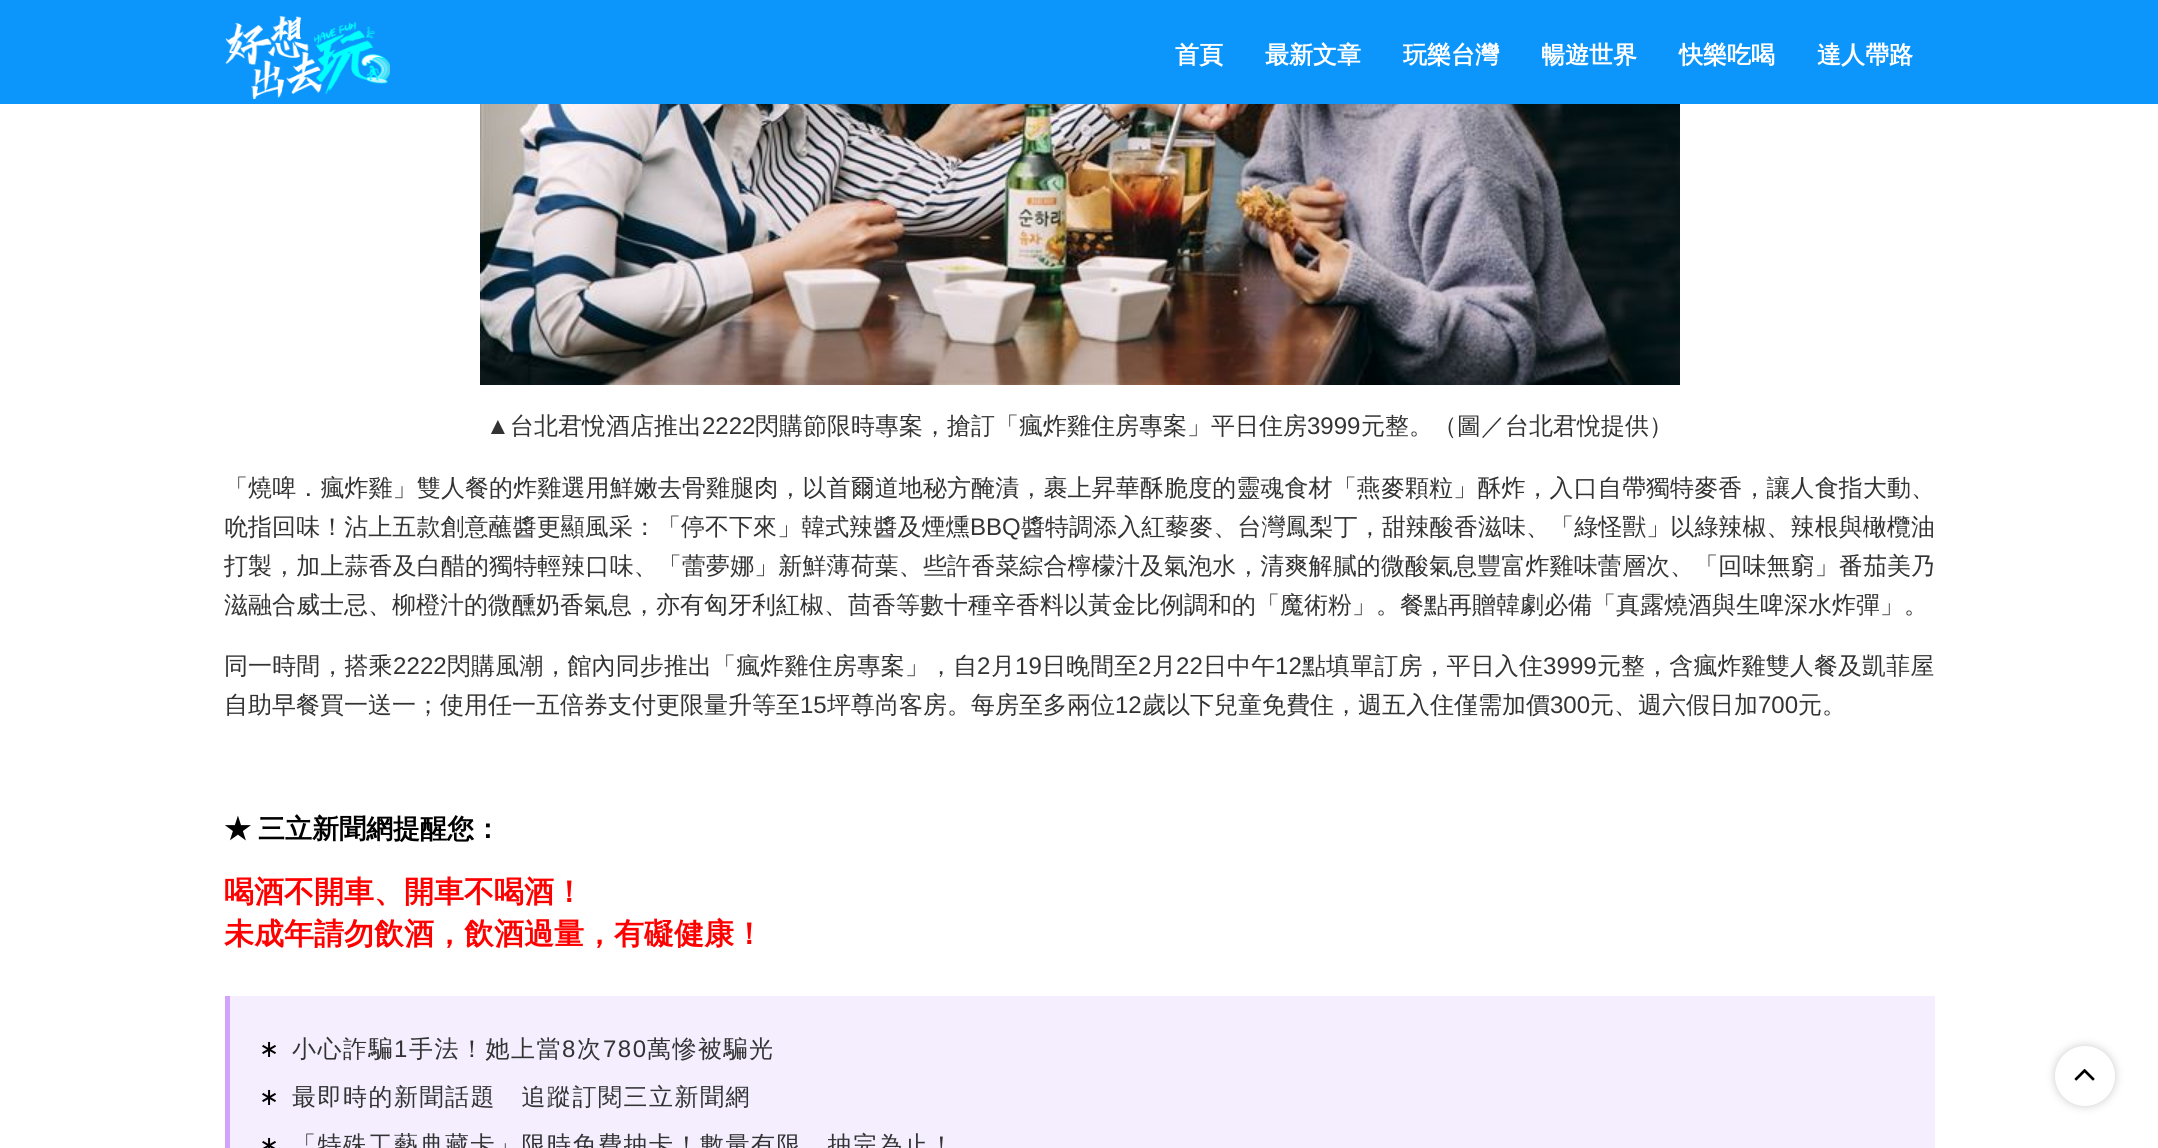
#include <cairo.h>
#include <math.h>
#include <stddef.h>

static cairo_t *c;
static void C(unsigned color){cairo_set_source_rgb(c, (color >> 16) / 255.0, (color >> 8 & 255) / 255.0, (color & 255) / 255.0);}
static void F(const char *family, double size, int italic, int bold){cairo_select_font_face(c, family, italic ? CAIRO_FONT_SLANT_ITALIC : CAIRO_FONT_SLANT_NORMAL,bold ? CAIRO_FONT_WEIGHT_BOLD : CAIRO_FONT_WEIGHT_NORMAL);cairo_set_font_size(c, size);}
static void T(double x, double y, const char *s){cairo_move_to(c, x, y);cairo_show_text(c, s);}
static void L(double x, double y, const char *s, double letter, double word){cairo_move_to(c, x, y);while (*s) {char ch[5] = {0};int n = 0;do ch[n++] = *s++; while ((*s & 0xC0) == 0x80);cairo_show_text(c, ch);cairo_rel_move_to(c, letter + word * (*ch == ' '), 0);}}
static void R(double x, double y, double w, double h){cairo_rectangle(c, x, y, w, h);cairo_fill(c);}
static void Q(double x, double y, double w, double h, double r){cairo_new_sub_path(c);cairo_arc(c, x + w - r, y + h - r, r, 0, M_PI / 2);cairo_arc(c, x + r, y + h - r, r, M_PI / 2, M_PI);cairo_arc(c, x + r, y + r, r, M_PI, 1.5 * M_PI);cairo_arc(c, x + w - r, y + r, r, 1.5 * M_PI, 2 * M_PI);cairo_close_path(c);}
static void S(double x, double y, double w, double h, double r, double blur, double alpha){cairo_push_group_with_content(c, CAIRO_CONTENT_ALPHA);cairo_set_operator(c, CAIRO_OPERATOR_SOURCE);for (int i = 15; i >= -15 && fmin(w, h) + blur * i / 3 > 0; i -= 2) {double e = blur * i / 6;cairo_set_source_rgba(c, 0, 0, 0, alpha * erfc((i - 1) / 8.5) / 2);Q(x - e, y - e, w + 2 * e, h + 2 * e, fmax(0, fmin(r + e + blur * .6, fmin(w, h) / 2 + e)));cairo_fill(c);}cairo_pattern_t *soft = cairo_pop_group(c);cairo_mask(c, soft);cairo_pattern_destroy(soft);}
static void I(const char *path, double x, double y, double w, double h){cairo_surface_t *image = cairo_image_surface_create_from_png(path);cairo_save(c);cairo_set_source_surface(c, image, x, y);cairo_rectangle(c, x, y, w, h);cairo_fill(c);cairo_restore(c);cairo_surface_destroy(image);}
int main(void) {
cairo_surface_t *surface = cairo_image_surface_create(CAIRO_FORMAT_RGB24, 2158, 1148);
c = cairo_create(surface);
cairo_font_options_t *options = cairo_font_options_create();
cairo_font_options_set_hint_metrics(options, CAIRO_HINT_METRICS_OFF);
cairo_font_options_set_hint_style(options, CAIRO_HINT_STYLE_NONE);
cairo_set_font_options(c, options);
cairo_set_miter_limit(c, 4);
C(0xffffff);
cairo_paint(c);
C(0x0c96fc);
R(0,0,2158,104);
I("1.png",225,15,165,84);
F("WenQuanYi Zen Hei",24,0,1);
C(0xffffff);
T(1175,63,"首頁");
T(1265,63,"最新文章");
T(1403,63,"玩樂台灣");
T(1541,63,"暢遊世界");
T(1679,63,"快樂吃喝");
T(1817,63,"達人帶路");
I("2.png",480,104,1200,281);
F("Liberation Sans",24,0,0);
C(0x333333);
T(486,434,"▲");
F("WenQuanYi Zen Hei Medium",24,0,0);
T(510,434,"台北君悅酒店推出");
F("Liberation Sans",24,0,0);
T(702,434,"2222");
F("WenQuanYi Zen Hei Medium",24,0,0);
T(755,434,"閃購節限時專案，搶訂「瘋炸雞住房專案」平日住房");
F("Liberation Sans",24,0,0);
T(1307,434,"3999");
F("WenQuanYi Zen Hei Medium",24,0,0);
T(1361,434,"元整。（圖／台北君悅提供）");
L(224,496,"「燒啤．瘋炸雞」雙人餐的炸雞選用鮮嫩去骨雞腿肉，以首爾道地秘方醃漬，裹上昇華酥脆度的靈魂食材「燕麥顆粒」酥炸，入口自帶獨特麥香，讓人食指大動、",.1,0);
L(224,535,"吮指回味！沾上五款創意蘸醬更顯風采：「停不下來」韓式辣醬及煙燻",.05,0);
F("Liberation Sans",24,0,0);
L(970,535,"BBQ",.05,0);
F("WenQuanYi Zen Hei Medium",24,0,0);
L(1021,535,"醬特調添入紅藜麥、台灣鳳梨丁，甜辣酸香滋味、「綠怪獸」以綠辣椒、辣根與橄欖油",.05,0);
L(224,574,"打製，加上蒜香及白醋的獨特輕辣口味、「蕾夢娜」新鮮薄荷葉、些許香菜綜合檸檬汁及氣泡水，清爽解膩的微酸氣息豐富炸雞味蕾層次、「回味無窮」番茄美乃",.1,0);
T(224,613,"滋融合威士忌、柳橙汁的微醺奶香氣息，亦有匈牙利紅椒、茴香等數十種辛香料以黃金比例調和的「魔術粉」。餐點再贈韓劇必備「真露燒酒與生啤深水炸彈」。");
L(224,674,"同一時間，搭乘",.1,0);
F("Liberation Sans",24,0,0);
L(393,674,"2222",.1,0);
F("WenQuanYi Zen Hei Medium",24,0,0);
L(447,674,"閃購風潮，館內同步推出「瘋炸雞住房專案」，自",.1,0);
F("Liberation Sans",24,0,0);
L(977,674,"2",.1,0);
F("WenQuanYi Zen Hei Medium",24,0,0);
L(991,674,"月",.1,0);
F("Liberation Sans",24,0,0);
L(1015,674,"19",.1,0);
F("WenQuanYi Zen Hei Medium",24,0,0);
L(1042,674,"日晚間至",.1,0);
F("Liberation Sans",24,0,0);
L(1138,674,"2",.1,0);
F("WenQuanYi Zen Hei Medium",24,0,0);
L(1152,674,"月",.1,0);
F("Liberation Sans",24,0,0);
L(1176,674,"22",.1,0);
F("WenQuanYi Zen Hei Medium",24,0,0);
L(1203,674,"日中午",.1,0);
F("Liberation Sans",24,0,0);
L(1275,674,"12",.1,0);
F("WenQuanYi Zen Hei Medium",24,0,0);
L(1302,674,"點填單訂房，平日入住",.1,0);
F("Liberation Sans",24,0,0);
L(1543,674,"3999",.1,0);
F("WenQuanYi Zen Hei Medium",24,0,0);
L(1597,674,"元整，含瘋炸雞雙人餐及凱菲屋",.1,0);
T(224,713,"自助早餐買一送一；使用任一五倍券支付更限量升等至");
F("Liberation Sans",24,0,0);
T(800,713,"15");
F("WenQuanYi Zen Hei Medium",24,0,0);
T(827,713,"坪尊尚客房。每房至多兩位");
F("Liberation Sans",24,0,0);
T(1115,713,"12");
F("WenQuanYi Zen Hei Medium",24,0,0);
T(1142,713,"歲以下兒童免費住，週五入住僅需加價");
F("Liberation Sans",24,0,0);
T(1550,713,"300");
F("WenQuanYi Zen Hei Medium",24,0,0);
T(1590,713,"元、週六假日加");
F("Liberation Sans",24,0,0);
T(1758,713,"700");
F("WenQuanYi Zen Hei Medium",24,0,0);
T(1798,713,"元。");
F("WenQuanYi Zen Hei",27,0,1);
C(0x000000);
L(224,838,"★ 三立新聞網提醒您：",0,-1);
F("WenQuanYi Zen Hei",30,0,1);
C(0xff0000);
T(224,902,"喝酒不開車、開車不喝酒！");
T(224,944,"未成年請勿飲酒，飲酒過量，有礙健康！");
C(0xf4eeff);
R(230,996,1705,152);
C(0xd2a3fb);
R(225,996,5,152);
F("DejaVu Sans",24,0,0);
C(0x000000);
L(259,1057,"∗",1.5,0);
F("WenQuanYi Zen Hei Medium",24,0,0);
C(0x333333);
L(292,1057,"小心詐騙",1.5,0);
F("Liberation Sans",24,0,0);
L(394,1057,"1",1.5,0);
F("WenQuanYi Zen Hei Medium",24,0,0);
L(409,1057,"手法！她上當",1.5,0);
F("Liberation Sans",24,0,0);
L(562,1057,"8",1.5,0);
F("WenQuanYi Zen Hei Medium",24,0,0);
L(577,1057,"次",1.5,0);
F("Liberation Sans",24,0,0);
L(603,1057,"780",1.5,0);
F("WenQuanYi Zen Hei Medium",24,0,0);
L(647,1057,"萬慘被騙光",1.5,0);
F("DejaVu Sans",24,0,0);
C(0x000000);
L(259,1105,"∗",1.5,0);
F("WenQuanYi Zen Hei Medium",24,0,0);
C(0x333333);
L(292,1105,"最即時的新聞話題　追蹤訂閱三立新聞網",1.5,0);
F("DejaVu Sans",24,0,0);
C(0x000000);
L(259,1153,"∗",1.5,0);
F("WenQuanYi Zen Hei Medium",24,0,0);
C(0x333333);
L(292,1153,"「特殊工藝典藏卡」限時免費抽卡！數量有限、抽完為止！",1.5,0);
C(0xcccccc);
S(2055,1046,60,60,30,4.5,1);
C(0xffffff);
cairo_arc(c,2085,1076,30,0,2 * M_PI);
cairo_fill(c);
I("3.png",2074,1069,21,12);
cairo_surface_write_to_png(surface, "o.png");
cairo_font_options_destroy(options);
cairo_destroy(c);
cairo_surface_destroy(surface);
return 0;
}
